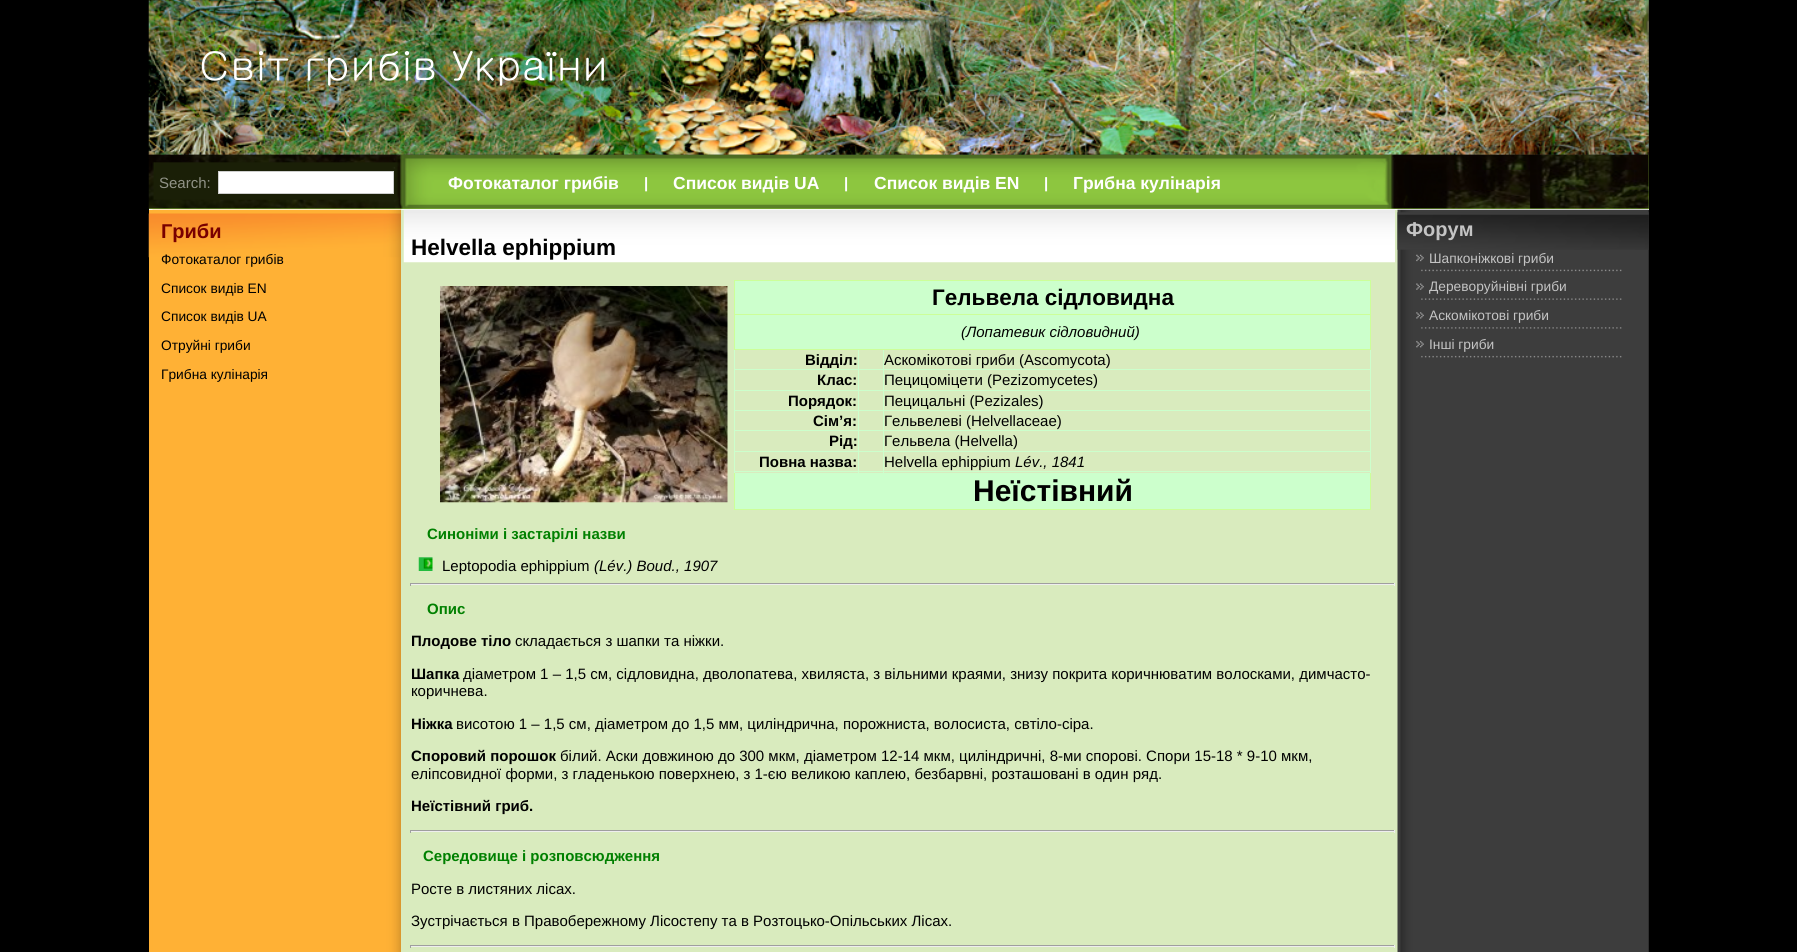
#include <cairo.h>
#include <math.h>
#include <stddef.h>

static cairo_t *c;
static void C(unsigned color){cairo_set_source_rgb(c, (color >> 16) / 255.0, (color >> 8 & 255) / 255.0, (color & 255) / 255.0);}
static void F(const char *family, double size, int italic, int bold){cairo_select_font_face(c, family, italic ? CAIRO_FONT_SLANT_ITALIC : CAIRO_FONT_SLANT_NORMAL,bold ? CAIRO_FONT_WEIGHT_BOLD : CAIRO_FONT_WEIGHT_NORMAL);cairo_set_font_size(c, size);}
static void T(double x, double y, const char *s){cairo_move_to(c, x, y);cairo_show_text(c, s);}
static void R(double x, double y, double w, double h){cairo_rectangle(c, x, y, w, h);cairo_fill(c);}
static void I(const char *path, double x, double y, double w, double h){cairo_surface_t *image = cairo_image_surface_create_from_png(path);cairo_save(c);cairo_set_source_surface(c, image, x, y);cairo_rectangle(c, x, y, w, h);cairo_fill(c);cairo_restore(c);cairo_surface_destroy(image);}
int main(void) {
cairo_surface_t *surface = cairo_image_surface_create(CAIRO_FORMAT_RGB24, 1797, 952);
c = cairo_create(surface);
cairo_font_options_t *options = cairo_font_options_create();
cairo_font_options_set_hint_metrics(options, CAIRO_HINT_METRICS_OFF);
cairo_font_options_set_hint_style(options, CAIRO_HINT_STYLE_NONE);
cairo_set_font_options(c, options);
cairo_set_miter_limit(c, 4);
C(0x000000);
cairo_paint(c);
C(0x323232);
R(149,0,1500,155);
I("1.png",148,0,1501,155);
F("Gulim",41.25,0,0);
C(0xffffff);
T(199,80,"Світ грибів України");
C(0x88c239);
R(149,155,1500,54);
I("2.png",148,154,1501,55);
C(0xffffff);
R(149,209,1500,1);
F("Liberation Sans",15,0,0);
C(0x919387);
T(159,188,"Search:");
C(0xffffff);
cairo_rectangle(c,218.5,171.5,175,22);
cairo_fill_preserve(c);
C(0xcecece);
cairo_set_line_width(c,1);
cairo_stroke(c);
F("Liberation Sans",17.5,0,1);
C(0xffffff);
T(448,189,"Фотокаталог грибів");
F("Liberation Sans",15,0,1);
T(644,188,"|");
F("Liberation Sans",17.5,0,1);
T(673,189,"Список видів UA");
F("Liberation Sans",15,0,1);
T(844,188,"|");
F("Liberation Sans",17.5,0,1);
T(874,189,"Список видів EN");
F("Liberation Sans",15,0,1);
T(1044,188,"|");
F("Liberation Sans",17.5,0,1);
T(1073,189,"Грибна кулінарія");
C(0xffb135);
R(149,210,4,742);
I("3.png",152,209,250,743);
I("4.png",148,213,253,45);
F("Liberation Sans",20,0,1);
C(0x790000);
T(161,238,"Гриби");
F("Liberation Sans",13.75,0,0);
C(0x000000);
T(161,264,"Фотокаталог грибів");
T(161,293,"Список видів EN");
T(161,321,"Список видів UA");
T(161,350,"Отруйні гриби");
T(161,379,"Грибна кулінарія");
C(0xd9ebbe);
R(401,210,997,742);
I("5.png",403,209,992,54);
F("Liberation Sans",22.5,0,1);
C(0x000000);
T(411,255,"Helvella ephippium");
I("6.png",440,286,288,217);
C(0xccffcc);
R(735,281,635,33);
C(0xccff99);
R(734,280,637,1);
R(734,314,637,1);
C(0xccffcc);
R(883,369,488,1);
R(883,390,488,1);
R(883,410,488,1);
R(883,430,488,1);
R(883,451,488,1);
C(0xccff99);
R(1370,471,1,39);
C(0xccffcc);
R(1370,451,1,22);
R(1370,430,1,23);
R(1370,410,1,21);
R(1370,390,1,21);
R(1370,349,1,42);
C(0xccff99);
R(1370,314,1,36);
R(1370,280,1,35);
C(0xccffcc);
R(883,471,488,1);
R(883,451,1,22);
R(858,451,26,1);
R(883,430,1,23);
R(858,430,26,1);
R(883,410,1,21);
R(858,410,26,1);
R(883,390,1,21);
R(858,390,26,1);
R(883,369,1,22);
R(858,369,26,1);
R(858,471,26,1);
R(858,451,1,22);
R(734,451,125,1);
R(858,430,1,23);
R(734,430,125,1);
R(858,410,1,21);
R(734,410,125,1);
R(858,390,1,21);
R(734,390,125,1);
R(858,369,1,22);
R(734,369,125,1);
R(858,349,1,21);
R(883,349,1,21);
C(0xccff99);
R(734,509,637,1);
R(734,471,1,39);
C(0xccffcc);
R(734,471,125,1);
R(734,451,1,22);
R(734,430,1,23);
R(734,410,1,21);
R(734,390,1,21);
R(734,349,1,42);
C(0xccff99);
R(734,349,637,1);
R(734,314,1,36);
R(734,280,1,35);
C(0x000000);
T(932,305,"Гельвела сідловидна");
C(0xccffcc);
R(735,315,635,34);
F("Liberation Sans",15,1,0);
C(0x000000);
T(961,337,"(Лопатевик сідловидний)");
F("Liberation Sans",15,0,1);
T(805,365,"Відділ:");
F("Liberation Sans",15,0,0);
T(884,365,"Аскомікотові гриби (Ascomycota)");
F("Liberation Sans",15,0,1);
T(817,385,"Клас:");
F("Liberation Sans",15,0,0);
T(884,385,"Пецицоміцети (Pezizomycetes)");
F("Liberation Sans",15,0,1);
T(788,406,"Порядок:");
F("Liberation Sans",15,0,0);
T(884,406,"Пецицальні (Pezizales)");
F("Liberation Sans",15,0,1);
T(813,426,"Сім’я:");
F("Liberation Sans",15,0,0);
T(884,426,"Гельвелеві (Helvellaceae)");
F("Liberation Sans",15,0,1);
T(829,446,"Рід:");
F("Liberation Sans",15,0,0);
T(884,446,"Гельвела (Helvella)");
F("Liberation Sans",15,0,1);
T(759,467,"Повна назва:");
F("Liberation Sans",15,0,0);
T(884,467,"Helvella ephippium");
F("Liberation Sans",15,1,0);
T(1015,467,"Lév., 1841");
C(0xccffcc);
R(735,473,635,36);
F("Liberation Sans",30,0,1);
C(0x000000);
T(973,501,"Неїстівний");
F("Liberation Sans",15,0,1);
C(0x008000);
T(427,539,"Синоніми і застарілі назви");
I("7.png",418,557,15,14);
F("Liberation Sans",15,0,0);
C(0x000000);
T(442,571,"Leptopodia ephippium");
F("Liberation Sans",15,1,0);
T(594,571,"(Lév.) Boud., 1907");
C(0x9f9f9f);
R(410,583,985,1);
C(0xeeeeee);
R(1394,583,1,3);
R(410,584,985,1);
C(0x9f9f9f);
R(410,583,1,3);
F("Liberation Sans",15,0,1);
C(0x008000);
T(427,614,"Опис");
C(0x000000);
T(411,646,"Плодове тіло");
F("Liberation Sans",15,0,0);
T(515,646,"складається з шапки та ніжки.");
F("Liberation Sans",15,0,1);
T(411,679,"Шапка");
F("Liberation Sans",15,0,0);
T(463,679,"діаметром 1 – 1,5 см, сідловидна, дволопатева, хвиляста, з вільними краями, знизу покрита коричнюватим волосками, димчасто-");
T(411,696,"коричнева.");
F("Liberation Sans",15,0,1);
T(411,729,"Ніжка");
F("Liberation Sans",15,0,0);
T(456,729,"висотою 1 – 1,5 см, діаметром до 1,5 мм, циліндрична, порожниста, волосиста, свтіло-сіра.");
F("Liberation Sans",15,0,1);
T(411,761,"Споровий порошок");
F("Liberation Sans",15,0,0);
T(560,761,"білий. Аски довжиною до 300 мкм, діаметром 12-14 мкм, циліндричні, 8-ми спорові. Спори 15-18 * 9-10 мкм,");
T(411,779,"еліпсовидної форми, з гладенькою поверхнею, з 1-єю великою каплею, безбарвні, розташовані в один ряд.");
F("Liberation Sans",15,0,1);
T(411,811,"Неїстівний гриб.");
C(0x9f9f9f);
R(410,830,985,1);
C(0xeeeeee);
R(1394,830,1,3);
R(410,831,985,1);
C(0x9f9f9f);
R(410,830,1,3);
C(0x008000);
T(423,861,"Середовище і розповсюдження");
F("Liberation Sans",15,0,0);
C(0x000000);
T(411,894,"Росте в листяних лісах.");
T(411,926,"Зустрічається в Правобережному Лісостепу та в Розтоцько-Опільських Лісах.");
C(0x9f9f9f);
R(410,945,985,1);
C(0xeeeeee);
R(1394,945,1,3);
R(410,946,985,1);
C(0x9f9f9f);
R(410,945,1,3);
I("8.png",1397,209,252,743);
I("9.png",1397,212,252,38);
F("Liberation Sans",20,0,1);
C(0xc4c4c4);
T(1406,236,"Форум");
I("10.png",1421,269,201,3);
I("11.png",1416,254,8,8);
F("Liberation Sans",13.75,0,0);
T(1429,263,"Шапконіжкові гриби");
I("12.png",1421,298,201,2);
I("13.png",1416,283,8,7);
T(1429,291,"Дереворуйнівні гриби");
I("14.png",1421,327,201,2);
I("15.png",1416,312,8,7);
T(1429,320,"Аскомікотові гриби");
I("16.png",1421,355,201,3);
I("17.png",1416,340,8,8);
T(1429,349,"Інші гриби");
cairo_surface_write_to_png(surface, "o.png");
cairo_font_options_destroy(options);
cairo_destroy(c);
cairo_surface_destroy(surface);
return 0;
}
